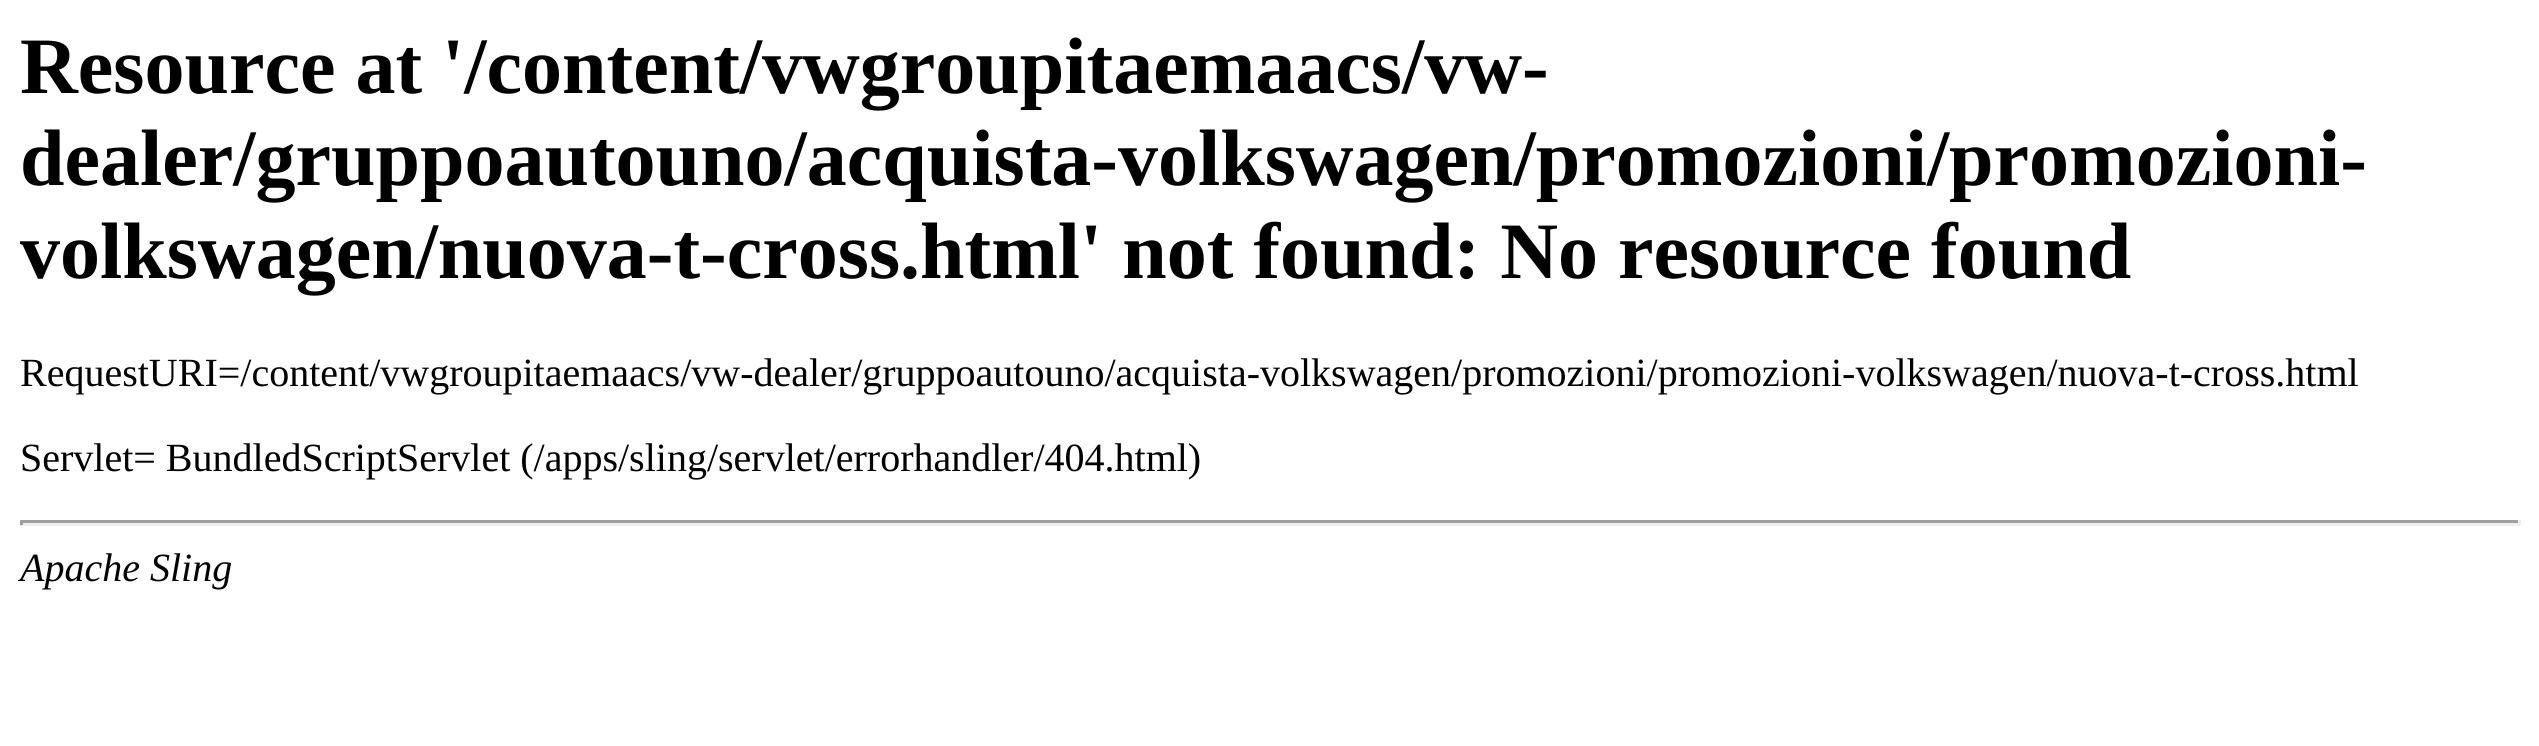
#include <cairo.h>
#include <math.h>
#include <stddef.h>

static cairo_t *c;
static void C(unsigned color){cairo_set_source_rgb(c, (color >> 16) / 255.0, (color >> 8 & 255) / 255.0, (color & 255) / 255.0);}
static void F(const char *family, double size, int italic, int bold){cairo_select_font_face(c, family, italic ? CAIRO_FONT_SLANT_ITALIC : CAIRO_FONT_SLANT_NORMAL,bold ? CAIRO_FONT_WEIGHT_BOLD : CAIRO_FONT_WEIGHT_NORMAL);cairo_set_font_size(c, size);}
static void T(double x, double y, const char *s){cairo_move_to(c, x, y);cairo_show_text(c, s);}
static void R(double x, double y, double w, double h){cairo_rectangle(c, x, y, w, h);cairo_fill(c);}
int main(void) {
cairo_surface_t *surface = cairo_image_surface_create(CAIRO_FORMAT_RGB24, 2539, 746);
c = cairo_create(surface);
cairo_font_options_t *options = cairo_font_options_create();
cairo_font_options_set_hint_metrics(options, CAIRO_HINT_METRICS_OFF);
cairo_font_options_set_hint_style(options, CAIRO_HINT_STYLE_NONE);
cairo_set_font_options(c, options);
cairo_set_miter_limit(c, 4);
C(0xffffff);
cairo_paint(c);
F("Liberation Serif",80,0,1);
C(0x000000);
T(20,93,"Resource at '/content/vwgroupitaemaacs/vw-");
T(20,185,"dealer/gruppoautouno/acquista-volkswagen/promozioni/promozioni-");
T(20,278,"volkswagen/nuova-t-cross.html' not found: No resource found");
F("Liberation Serif",40,0,0);
T(20,386,"RequestURI=/content/vwgroupitaemaacs/vw-dealer/gruppoautouno/acquista-volkswagen/promozioni/promozioni-volkswagen/nuova-t-cross.html");
T(20,471,"Servlet= BundledScriptServlet (/apps/sling/servlet/errorhandler/404.html)");
C(0x9f9f9f);
R(20,520,2500,3);
C(0xeeeeee);
R(2518,520,3,5);
R(20,523,2500,3);
C(0x9f9f9f);
R(20,520,3,5);
F("Liberation Serif",40,1,0);
C(0x000000);
T(20,581,"Apache Sling");
cairo_surface_write_to_png(surface, "o.png");
cairo_font_options_destroy(options);
cairo_destroy(c);
cairo_surface_destroy(surface);
return 0;
}
